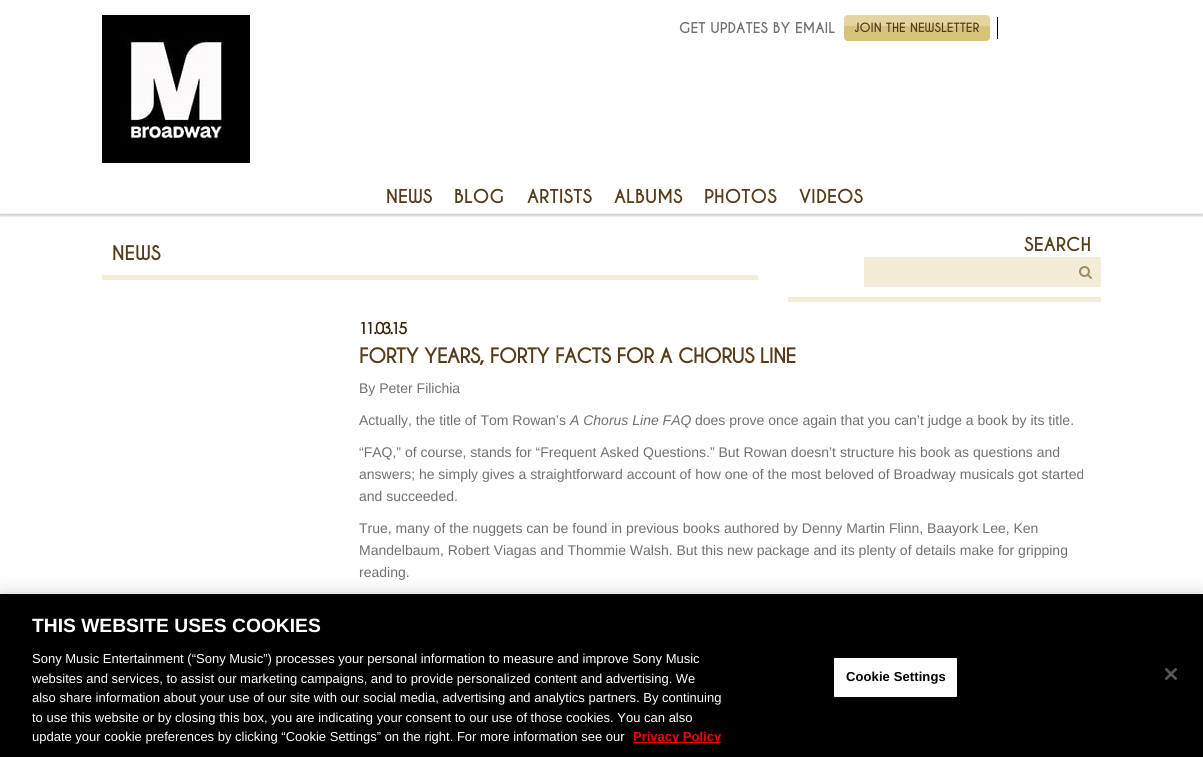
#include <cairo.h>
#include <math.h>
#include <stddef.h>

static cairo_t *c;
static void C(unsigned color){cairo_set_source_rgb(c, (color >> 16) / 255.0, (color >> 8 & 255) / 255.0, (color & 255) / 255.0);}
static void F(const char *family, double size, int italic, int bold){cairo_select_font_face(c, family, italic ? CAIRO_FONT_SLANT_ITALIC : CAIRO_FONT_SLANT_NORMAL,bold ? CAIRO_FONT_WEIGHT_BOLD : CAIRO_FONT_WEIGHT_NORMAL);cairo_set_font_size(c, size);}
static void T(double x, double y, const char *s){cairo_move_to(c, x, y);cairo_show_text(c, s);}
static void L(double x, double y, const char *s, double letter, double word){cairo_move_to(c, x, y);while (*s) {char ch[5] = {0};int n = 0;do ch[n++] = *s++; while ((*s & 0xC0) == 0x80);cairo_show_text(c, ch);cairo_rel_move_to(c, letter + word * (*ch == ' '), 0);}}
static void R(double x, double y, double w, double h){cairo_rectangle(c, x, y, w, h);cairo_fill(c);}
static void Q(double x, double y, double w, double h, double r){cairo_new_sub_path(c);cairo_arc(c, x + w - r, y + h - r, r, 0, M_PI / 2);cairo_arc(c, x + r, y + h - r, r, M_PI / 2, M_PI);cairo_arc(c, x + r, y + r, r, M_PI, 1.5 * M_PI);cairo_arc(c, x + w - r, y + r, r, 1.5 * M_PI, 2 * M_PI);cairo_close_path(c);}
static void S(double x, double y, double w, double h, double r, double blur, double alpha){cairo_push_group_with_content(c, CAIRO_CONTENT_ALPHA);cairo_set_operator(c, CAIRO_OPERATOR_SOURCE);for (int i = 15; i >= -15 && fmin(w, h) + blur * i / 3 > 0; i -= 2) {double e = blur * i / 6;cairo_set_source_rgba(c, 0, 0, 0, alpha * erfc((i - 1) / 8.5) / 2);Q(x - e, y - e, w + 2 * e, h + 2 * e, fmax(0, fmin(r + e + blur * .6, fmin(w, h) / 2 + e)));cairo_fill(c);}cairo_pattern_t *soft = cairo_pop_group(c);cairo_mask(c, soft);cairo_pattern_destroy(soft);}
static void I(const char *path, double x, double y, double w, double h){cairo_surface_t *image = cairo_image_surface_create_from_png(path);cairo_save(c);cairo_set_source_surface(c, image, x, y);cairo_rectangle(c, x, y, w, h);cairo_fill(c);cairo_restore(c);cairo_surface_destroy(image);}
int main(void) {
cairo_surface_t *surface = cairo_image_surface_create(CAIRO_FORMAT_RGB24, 1203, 757);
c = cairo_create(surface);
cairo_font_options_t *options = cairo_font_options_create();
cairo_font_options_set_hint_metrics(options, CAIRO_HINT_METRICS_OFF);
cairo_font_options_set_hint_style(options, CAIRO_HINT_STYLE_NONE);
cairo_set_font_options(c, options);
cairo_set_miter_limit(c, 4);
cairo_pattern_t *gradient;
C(0xffffff);
cairo_paint(c);
cairo_save(c);
cairo_rectangle(c,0,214,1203,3);
cairo_clip(c);
C(0x37210b);
S(0,2,1203,214,0,1,.22);
cairo_restore(c);
C(0xf2f2f2);
R(0,213,1203,1);
I("1.png",102,15,148,148);
F("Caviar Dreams",14,0,1);
C(0x707070);
T(679,33,"GET UPDATES BY EMAIL");
gradient = cairo_pattern_create_linear(917,15,917,41);
cairo_pattern_add_color_stop_rgba(gradient,.4,0.89,0.831,0.627,1);
cairo_pattern_add_color_stop_rgba(gradient,.45,0.843,0.761,0.475,1);
cairo_set_source(c,gradient);
cairo_pattern_destroy(gradient);
Q(844,15,146,26,4);
cairo_fill(c);
F("Caviar Dreams",12,0,1);
C(0x553d1b);
T(854,32,"JOIN THE NEWSLETTER");
C(0x000000);
R(997,17,1,22);
F("Caviar Dreams",18,0,1);
C(0x553d1b);
T(386,203,"NEWS");
T(454,203,"BLOG");
T(527,203,"ARTISTS");
T(614,203,"ALBUMS");
T(704,203,"PHOTOS");
T(799,203,"VIDEOS");
C(0xf3edd7);
R(102,275,656,5);
F("Caviar Dreams",19,0,1);
C(0x553d1b);
T(112,260,"NEWS");
C(0xf3edd7);
R(788,297,313,5);
F("Caviar Dreams",18,0,1);
C(0x553d1b);
T(1024,251,"SEARCH");
C(0xf3edd7);
R(864,257,237,30);
I("2.png",1079,266,13,13);
F("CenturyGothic",16,0,1);
C(0x35210b);
L(359,334,"11.03.15",-2,0);
F("Caviar Dreams",20,0,1);
C(0x553d1b);
L(359,363,"FORTY YEARS, FORTY FACTS FOR A CHORUS LINE",-1,0);
F("Liberation Sans",14,0,0);
C(0x707070);
T(359,393,"By Peter Filichia");
T(359,425,"Actually, the title of Tom Rowan’s");
F("Liberation Sans",14,1,0);
T(570,425,"A Chorus Line FAQ");
F("Liberation Sans",14,0,0);
T(695,425,"does prove once again that you can’t judge a book by its title.");
T(359,457,"“FAQ,” of course, stands for “Frequent Asked Questions.” But Rowan doesn’t structure his book as questions and");
T(359,479,"answers; he simply gives a straightforward account of how one of the most beloved of Broadway musicals got started");
T(359,501,"and succeeded.");
T(359,533,"True, many of the nuggets can be found in previous books authored by Denny Martin Flinn, Baayork Lee, Ken");
T(359,555,"Mandelbaum, Robert Viagas and Thommie Walsh. But this new package and its plenty of details make for gripping");
T(359,577,"reading.");
C(0x000000);
S(0,594,1203,163,0,9,.2);
C(0x000000);
R(0,594,1203,163);
F("Liberation Sans",19.25,0,1);
C(0xffffff);
T(32,632,"THIS WEBSITE USES COOKIES");
F("Liberation Sans",13,0,0);
T(32,663,"Sony Music Entertainment (“Sony Music”) processes your personal information to measure and improve Sony Music");
T(32,683,"websites and services, to assist our marketing campaigns, and to provide personalized content and advertising. We");
T(32,702,"also share information about your use of our site with our social media, advertising and analytics partners. By continuing");
T(32,722,"to use this website or by closing this box, you are indicating your consent to our use of those cookies. You can also");
T(32,741,"update your cookie preferences by clicking “Cookie Settings” on the right. For more information see our");
C(0xf90000);
R(633,742,88,1);
F("Liberation Sans",13,0,1);
T(633,741,"Privacy Policy");
C(0xffffff);
Q(833.5,657.5,124,40,1.5);
cairo_fill_preserve(c);
C(0x000000);
cairo_set_line_width(c,1);
cairo_stroke(c);
L(846,681,"Cookie Settings",.1,0);
I("3.png",1165,668,12,12);
cairo_surface_write_to_png(surface, "o.png");
cairo_font_options_destroy(options);
cairo_destroy(c);
cairo_surface_destroy(surface);
return 0;
}
